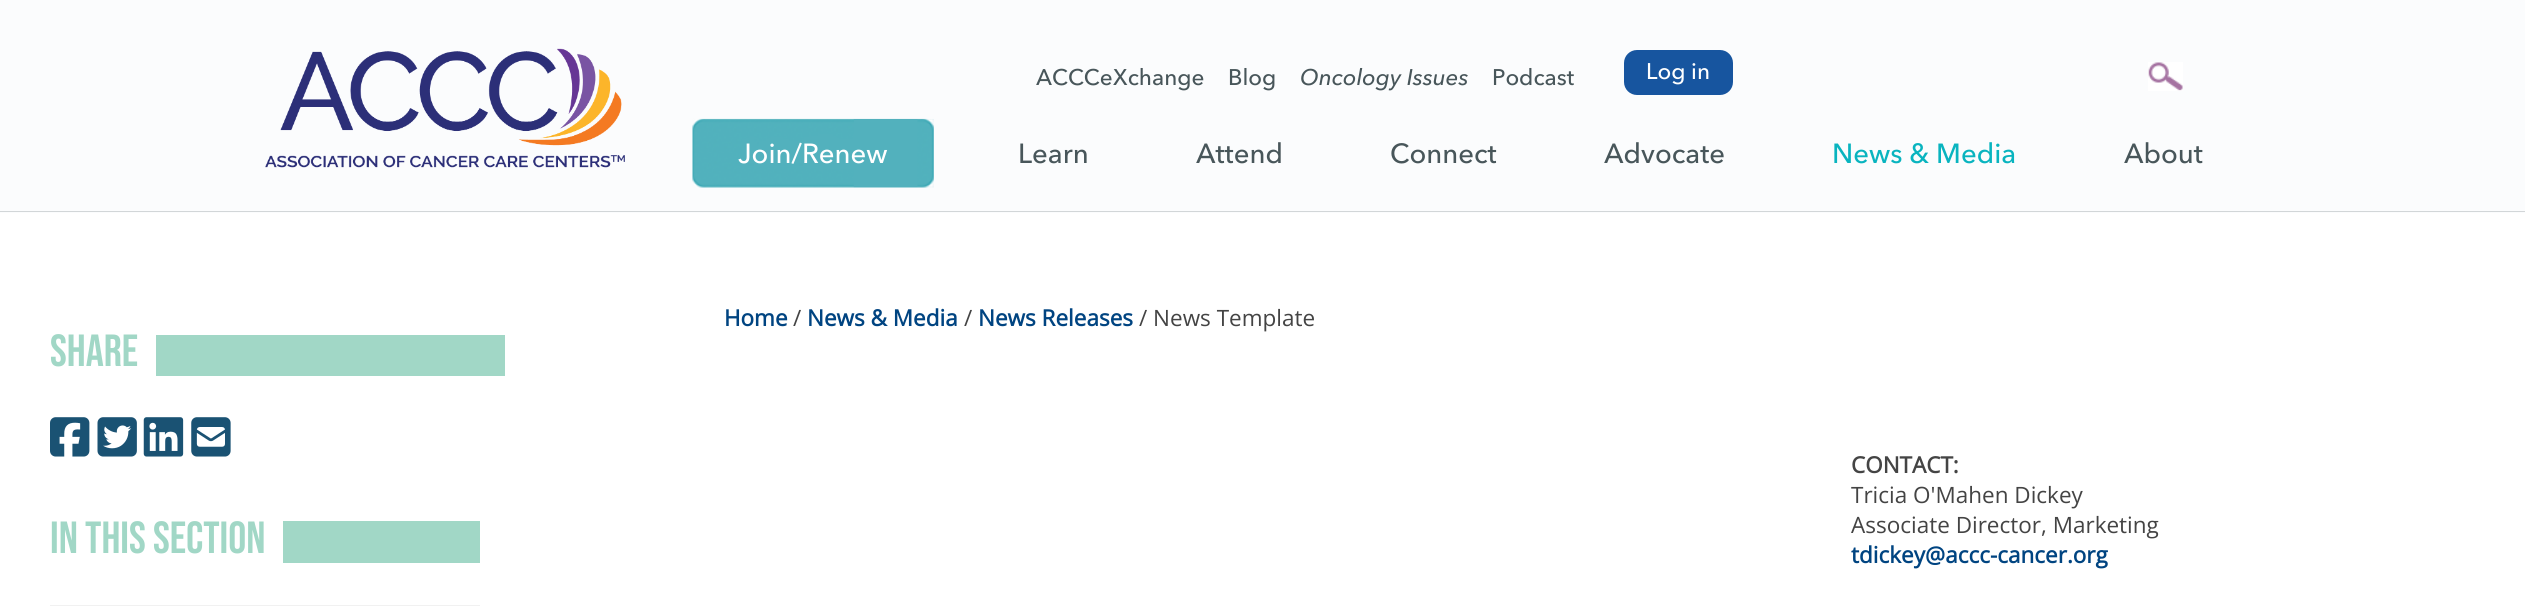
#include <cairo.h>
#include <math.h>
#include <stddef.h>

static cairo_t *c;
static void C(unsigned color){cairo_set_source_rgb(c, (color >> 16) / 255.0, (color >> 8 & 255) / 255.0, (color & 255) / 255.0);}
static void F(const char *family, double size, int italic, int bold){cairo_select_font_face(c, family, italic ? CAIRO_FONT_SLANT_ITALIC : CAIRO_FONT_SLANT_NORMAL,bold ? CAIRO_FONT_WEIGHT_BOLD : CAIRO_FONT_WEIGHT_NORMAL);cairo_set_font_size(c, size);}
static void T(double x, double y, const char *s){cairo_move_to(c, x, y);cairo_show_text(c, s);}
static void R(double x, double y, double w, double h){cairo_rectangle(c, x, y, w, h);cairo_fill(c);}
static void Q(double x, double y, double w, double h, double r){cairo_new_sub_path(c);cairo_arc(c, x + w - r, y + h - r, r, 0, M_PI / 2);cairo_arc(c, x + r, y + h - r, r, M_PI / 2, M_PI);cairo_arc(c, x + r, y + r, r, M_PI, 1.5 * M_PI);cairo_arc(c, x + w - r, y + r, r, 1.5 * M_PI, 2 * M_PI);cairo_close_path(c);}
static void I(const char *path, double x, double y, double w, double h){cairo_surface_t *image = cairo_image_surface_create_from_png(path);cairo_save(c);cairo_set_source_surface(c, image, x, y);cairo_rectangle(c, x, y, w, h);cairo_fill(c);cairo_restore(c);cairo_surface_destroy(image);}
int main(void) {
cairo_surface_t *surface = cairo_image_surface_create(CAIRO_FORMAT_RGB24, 2525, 608);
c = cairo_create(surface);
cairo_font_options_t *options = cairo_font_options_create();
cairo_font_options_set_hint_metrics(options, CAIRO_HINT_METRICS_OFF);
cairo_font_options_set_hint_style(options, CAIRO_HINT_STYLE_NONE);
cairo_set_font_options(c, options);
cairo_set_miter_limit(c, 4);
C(0xffffff);
cairo_paint(c);
C(0xfbfcfd);
R(0,0,2525,213);
C(0xd2d6d8);
R(0,211,2525,1);
I("1.png",265,48,360,120);
F("Avenir Next Medium",22.5,0,0);
C(0x48565a);
T(1036,85,"ACCCeXchange");
T(1228,85,"Blog");
F("Avenir Next Medium",22.5,1,0);
T(1300,85,"Oncology Issues");
F("Avenir Next Medium",22.5,0,0);
T(1492,85,"Podcast");
C(0x17559f);
Q(1624,50,109,45,13);
cairo_fill(c);
C(0xffffff);
T(1646,79,"Log in");
I("2.png",2148,62,35,29);
I("3.png",692,118,242,70);
F("Avenir Next Medium",27.5,0,0);
T(738,163,"Join/Renew");
C(0x48565a);
T(1018,163,"Learn");
T(1196,163,"Attend");
T(1390,163,"Connect");
T(1604,163,"Advocate");
C(0x09b4bf);
T(1832,163,"News & Media");
C(0x48565a);
T(2124,163,"About");
C(0xa1d7c6);
R(156,335,349,41);
F("Bebas Neue",45,0,0);
T(50,366,"Share");
I("4.png",50,417,40,40);
I("5.png",97,417,40,40);
I("6.png",143,417,41,40);
I("7.png",191,417,40,40);
R(283,521,197,42);
T(50,553,"In This Section");
C(0xf1f1f1);
R(50,605,430,1);
F("Open Sans",22.5,0,1);
C(0x004481);
T(724,326,"Home");
F("Open Sans",22.5,0,0);
C(0x444444);
T(793,326,"/");
F("Open Sans",22.5,0,1);
C(0x004481);
T(807,326,"News & Media");
F("Open Sans",22.5,0,0);
C(0x444444);
T(964,326,"/");
F("Open Sans",22.5,0,1);
C(0x004481);
T(978,326,"News Releases");
F("Open Sans",22.5,0,0);
C(0x444444);
T(1139,326,"/ News Template");
F("Open Sans",22.5,0,1);
T(1851,473,"CONTACT:");
F("Open Sans",22.5,0,0);
T(1851,503,"Tricia O'Mahen Dickey");
T(1851,533,"Associate Director, Marketing");
F("Open Sans",22.5,0,1);
C(0x004481);
T(1851,563,"tdickey@accc-cancer.org");
cairo_surface_write_to_png(surface, "o.png");
cairo_font_options_destroy(options);
cairo_destroy(c);
cairo_surface_destroy(surface);
return 0;
}
